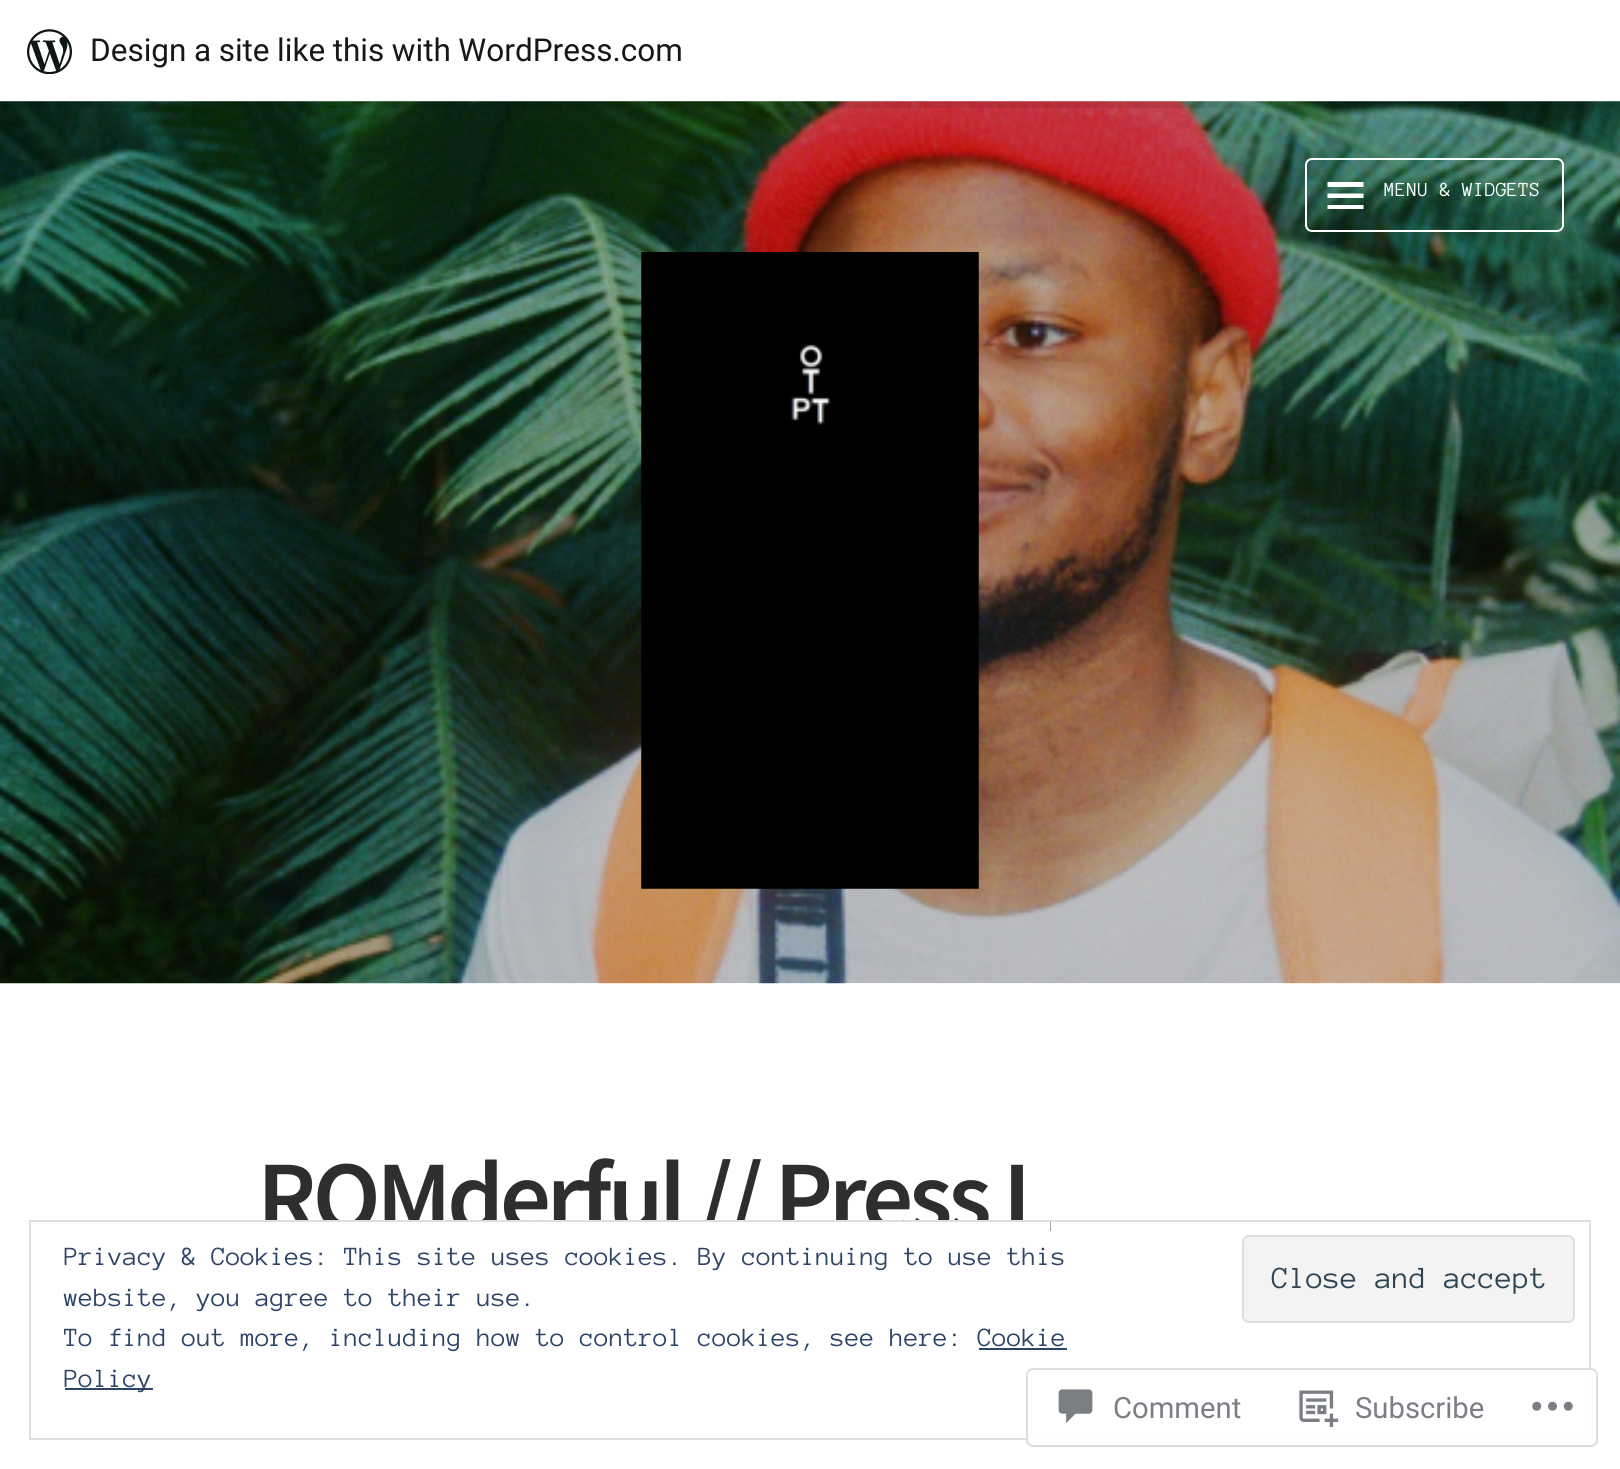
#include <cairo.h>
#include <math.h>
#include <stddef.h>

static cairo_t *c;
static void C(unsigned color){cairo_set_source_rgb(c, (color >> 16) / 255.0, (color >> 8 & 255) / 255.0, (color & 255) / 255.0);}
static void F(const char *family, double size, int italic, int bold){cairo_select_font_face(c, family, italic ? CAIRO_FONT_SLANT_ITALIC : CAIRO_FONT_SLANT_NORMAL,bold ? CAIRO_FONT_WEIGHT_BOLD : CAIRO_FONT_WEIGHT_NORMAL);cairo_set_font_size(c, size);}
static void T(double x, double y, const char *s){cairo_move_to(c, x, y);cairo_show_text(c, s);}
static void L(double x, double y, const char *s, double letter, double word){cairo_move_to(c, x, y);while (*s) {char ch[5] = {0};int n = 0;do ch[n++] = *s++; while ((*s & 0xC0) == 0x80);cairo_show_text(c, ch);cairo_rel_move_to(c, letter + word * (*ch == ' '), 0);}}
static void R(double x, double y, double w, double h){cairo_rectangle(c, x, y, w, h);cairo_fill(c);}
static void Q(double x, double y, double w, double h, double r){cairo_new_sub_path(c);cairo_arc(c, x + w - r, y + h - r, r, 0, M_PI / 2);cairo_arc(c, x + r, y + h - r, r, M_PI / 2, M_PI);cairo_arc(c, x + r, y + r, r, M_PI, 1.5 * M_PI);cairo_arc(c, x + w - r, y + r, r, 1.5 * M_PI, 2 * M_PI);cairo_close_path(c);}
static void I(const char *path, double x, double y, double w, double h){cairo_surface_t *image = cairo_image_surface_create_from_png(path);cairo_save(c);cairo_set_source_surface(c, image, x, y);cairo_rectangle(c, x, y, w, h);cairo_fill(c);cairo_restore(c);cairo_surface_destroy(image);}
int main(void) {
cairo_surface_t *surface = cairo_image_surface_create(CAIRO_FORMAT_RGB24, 1620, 1469);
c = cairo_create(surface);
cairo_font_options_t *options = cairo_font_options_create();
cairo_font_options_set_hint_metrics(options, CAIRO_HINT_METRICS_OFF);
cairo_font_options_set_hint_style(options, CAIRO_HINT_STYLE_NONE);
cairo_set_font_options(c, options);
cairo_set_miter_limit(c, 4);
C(0xffffff);
cairo_paint(c);
I("2.png",0,101,1620,883);
cairo_set_source_rgba(c,0,0,0,0.08);
cairo_new_path(c);
cairo_move_to(c,2,101);
cairo_line_to(c,2,108);
cairo_line_to(c,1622,108);
cairo_line_to(c,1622,7);
cairo_line_to(c,1620,7);
cairo_line_to(c,1620,101);
cairo_close_path(c);
cairo_fill(c);
I("1.png",27,29,45,45);
F("Roboto",31.5,0,0);
C(0x171717);
L(90,61,"Design a site like this with WordPress.com",0,-.25);
Q(1306,159,257,72,6);
C(0xffffff);
cairo_stroke(c);
cairo_new_path(c);
cairo_move_to(c,1327.5,209);
cairo_line_to(c,1327.5,205);
cairo_line_to(c,1363.5,205);
cairo_line_to(c,1363.5,209);
cairo_close_path(c);
cairo_move_to(c,1327.5,182);
cairo_line_to(c,1363.5,182);
cairo_line_to(c,1363.5,187);
cairo_line_to(c,1327.5,187);
cairo_close_path(c);
cairo_move_to(c,1327.5,198);
cairo_line_to(c,1327.5,193.5);
cairo_line_to(c,1363.5,193.5);
cairo_line_to(c,1363.5,198);
cairo_close_path(c);
cairo_fill(c);
F("Anonymous Pro",20.5,0,0);
T(1384,196,"MENU & WIDGETS");
I("3.png",641,252,338,637);
F("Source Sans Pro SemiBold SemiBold",101.25,0,0);
C(0x2e2e2e);
L(257,1231,"ROMderful // Press L",-4.5,0);
C(0xffffff);
R(265,1222,785,26);
cairo_rectangle(c,30,1221,1560,218);
C(0xdedede);
cairo_stroke(c);
F("Anonymous Pro",27,0,0);
C(0x2e4467);
T(64,1265,"Privacy & Cookies: This site uses cookies. By continuing to use this");
C(0xf3f3f3);
Q(1243,1236,331,86,6);
cairo_fill_preserve(c);
C(0xdedede);
cairo_stroke(c);
F("Anonymous Pro",31.5,0,0);
C(0x2e4453);
T(1272,1288,"Close and accept");
F("Anonymous Pro",27,0,0);
C(0x2e4467);
T(64,1306,"website, you agree to their use.");
T(64,1346,"To find out more, including how to control cookies, see here: Cookie");
R(65,1388,88,2);
T(64,1387,"Policy");
R(979,1348,88,2);
cairo_set_source_rgba(c,1,1,1,0.98);
Q(1027,1369,570,77,6);
cairo_fill_preserve(c);
C(0xdddddf);
cairo_stroke(c);
I("4.png",1058,1389,35,34);
F("Roboto",29.25,0,0);
C(0x7b7f85);
T(1113,1418,"Comment");
I("5.png",1299,1390,40,38);
T(1355,1418,"Subscribe");
I("6.png",1532,1401,41,10);
cairo_surface_write_to_png(surface, "o.png");
cairo_font_options_destroy(options);
cairo_destroy(c);
cairo_surface_destroy(surface);
return 0;
}
